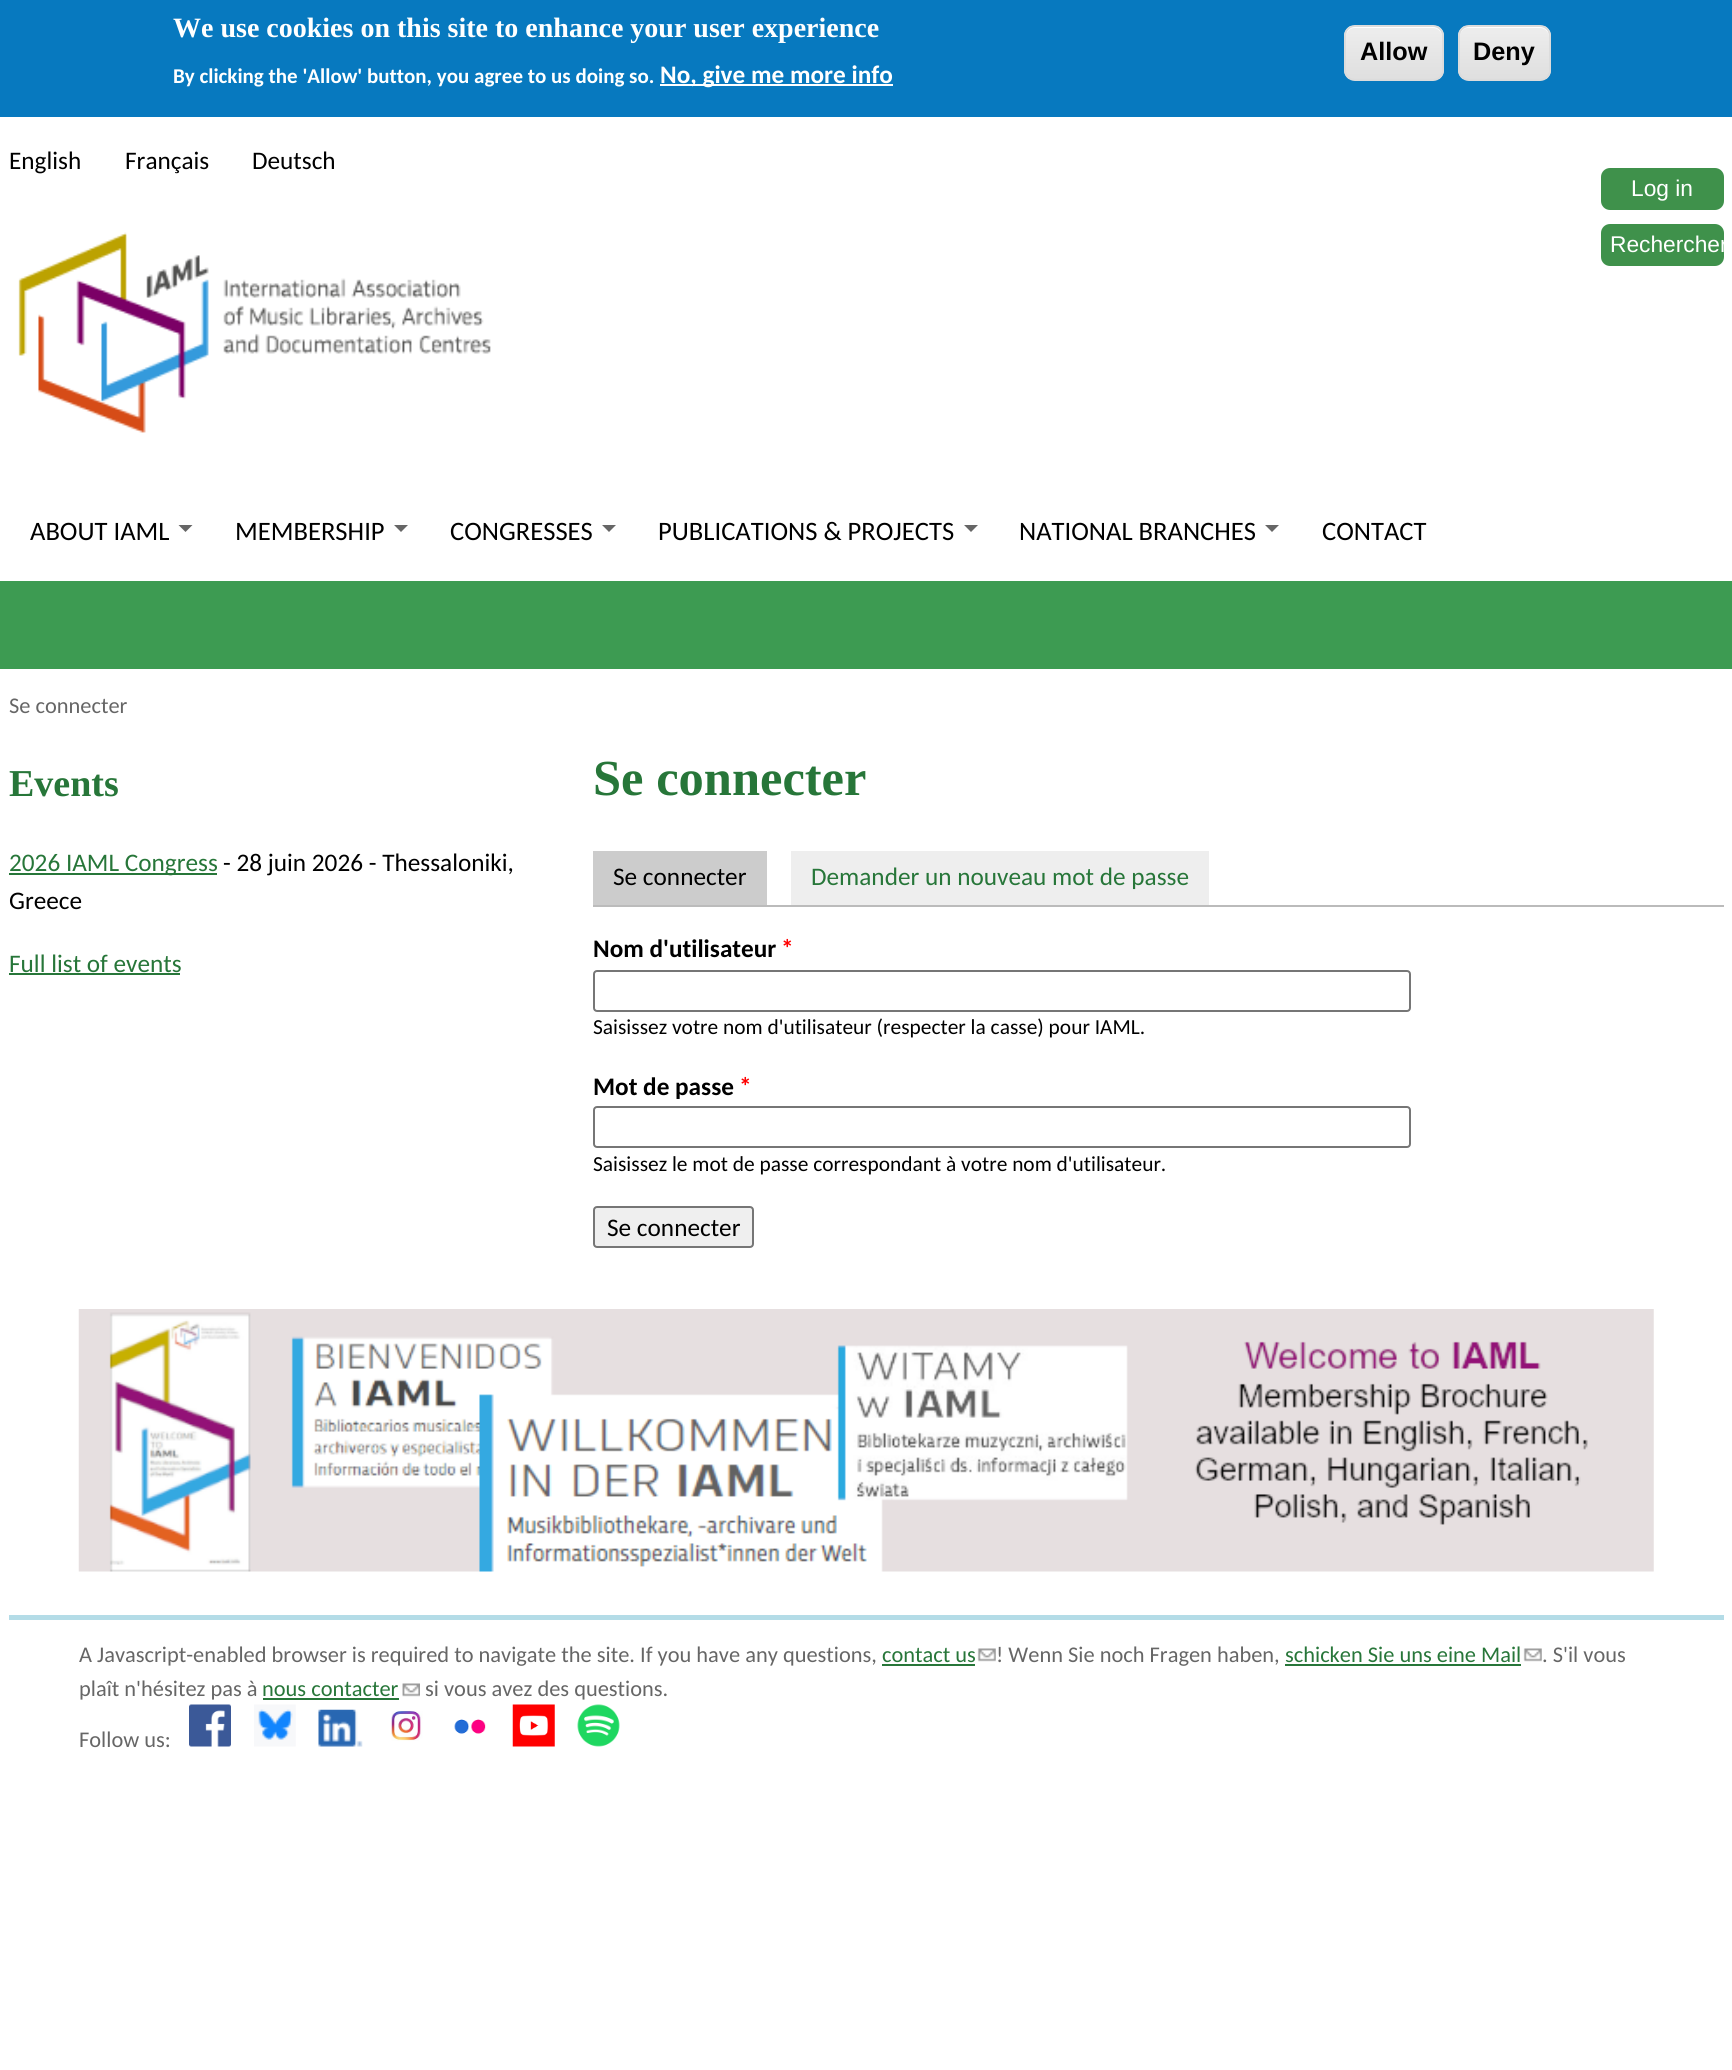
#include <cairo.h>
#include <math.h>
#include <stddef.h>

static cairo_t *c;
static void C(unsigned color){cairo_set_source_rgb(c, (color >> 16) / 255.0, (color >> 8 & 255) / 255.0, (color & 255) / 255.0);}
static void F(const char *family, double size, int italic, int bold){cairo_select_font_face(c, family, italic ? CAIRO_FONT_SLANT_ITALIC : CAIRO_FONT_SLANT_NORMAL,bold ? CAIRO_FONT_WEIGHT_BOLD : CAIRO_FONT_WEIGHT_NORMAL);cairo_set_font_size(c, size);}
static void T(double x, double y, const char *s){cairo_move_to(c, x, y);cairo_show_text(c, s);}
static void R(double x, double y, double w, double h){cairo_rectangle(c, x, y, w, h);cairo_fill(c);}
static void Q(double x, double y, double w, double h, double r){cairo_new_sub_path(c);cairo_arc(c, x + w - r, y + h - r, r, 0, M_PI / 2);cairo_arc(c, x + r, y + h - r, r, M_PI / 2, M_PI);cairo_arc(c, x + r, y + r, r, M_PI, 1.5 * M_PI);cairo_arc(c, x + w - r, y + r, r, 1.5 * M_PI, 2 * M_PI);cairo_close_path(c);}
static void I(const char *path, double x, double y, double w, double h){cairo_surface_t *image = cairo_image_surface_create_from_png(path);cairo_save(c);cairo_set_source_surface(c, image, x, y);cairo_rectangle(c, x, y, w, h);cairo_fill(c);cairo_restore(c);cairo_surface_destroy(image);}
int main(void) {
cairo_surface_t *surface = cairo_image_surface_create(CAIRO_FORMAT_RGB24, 1732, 2070);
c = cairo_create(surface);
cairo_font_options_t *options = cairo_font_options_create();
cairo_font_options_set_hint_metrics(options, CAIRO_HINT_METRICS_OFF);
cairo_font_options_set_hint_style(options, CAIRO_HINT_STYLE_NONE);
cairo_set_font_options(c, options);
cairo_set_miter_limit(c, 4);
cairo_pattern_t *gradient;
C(0xffffff);
cairo_paint(c);
C(0x0779bf);
R(0,0,1732,117);
F("Liberation Serif",28,0,1);
C(0xffffff);
T(173,37,"We use cookies on this site to enhance your user experience");
F("Carlito",21,0,1);
T(173,83,"By clicking the 'Allow' button, you agree to us doing so.");
R(660,84,233,2);
F("Carlito",25.25,0,1);
T(660,83,"No, give me more info");
cairo_save(c);
Q(1344,25,100,56,11);
cairo_clip(c);
gradient = cairo_pattern_create_linear(1394,26,1394,79);
cairo_pattern_add_color_stop_rgba(gradient,.05,0.929,0.929,0.929,1);
cairo_pattern_add_color_stop_rgba(gradient,1,0.875,0.875,0.875,1);
cairo_set_source(c,gradient);
cairo_pattern_destroy(gradient);
R(1344,26,100,53);
cairo_restore(c);
cairo_new_path(c);
cairo_move_to(c,1354,28);
cairo_line_to(c,1433,28);
cairo_curve_to(c,1438,28,1442,32,1442,37);
cairo_curve_to(c,1442,23,1431,26,1420,26);
cairo_line_to(c,1368,26);
cairo_curve_to(c,1357,26,1346,23,1346,37);
cairo_curve_to(c,1346,32,1350,28,1354,28);
cairo_close_path(c);
cairo_fill(c);
Q(1345,26,98,54,10);
C(0xdcdcdc);
cairo_stroke(c);
F("Liberation Sans",25.25,0,1);
C(0x000000);
T(1360,60,"Allow");
cairo_save(c);
Q(1458,25,93,56,11);
cairo_clip(c);
gradient = cairo_pattern_create_linear(1504,26,1504,79);
cairo_pattern_add_color_stop_rgba(gradient,.05,0.929,0.929,0.929,1);
cairo_pattern_add_color_stop_rgba(gradient,1,0.875,0.875,0.875,1);
cairo_set_source(c,gradient);
cairo_pattern_destroy(gradient);
R(1458,26,93,53);
cairo_restore(c);
C(0xffffff);
cairo_new_path(c);
cairo_move_to(c,1468,28);
cairo_line_to(c,1540,28);
cairo_curve_to(c,1545,28,1549,32,1549,37);
cairo_curve_to(c,1549,24,1539,26,1528,26);
cairo_line_to(c,1481,26);
cairo_curve_to(c,1470,26,1460,24,1460,37);
cairo_curve_to(c,1460,32,1463,28,1468,28);
cairo_close_path(c);
cairo_fill(c);
Q(1459,26,91,54,10);
C(0xdcdcdc);
cairo_stroke(c);
C(0x000000);
T(1473,60,"Deny");
F("Carlito",25.25,0,0);
T(9,169,"English");
T(125,169,"Français");
T(252,169,"Deutsch");
C(0x3f914b);
Q(1601,168,123,42,9);
cairo_fill(c);
F("Liberation Sans",22.75,0,0);
C(0xffffff);
T(1631,196,"Log in");
C(0x3f914b);
Q(1601,224,123,42,9);
cairo_fill(c);
C(0xffffff);
T(1610,252,"Rechercher");
I("1.png",18,232,473,201);
F("Carlito",26.6,0,0);
C(0x000000);
T(30,540,"ABOUT IAML");
C(0x666666);
cairo_new_path(c);
cairo_move_to(c,178.5,525);
cairo_line_to(c,192.5,525);
cairo_line_to(c,185.5,532);
cairo_close_path(c);
cairo_fill(c);
C(0x000000);
T(235,540,"MEMBERSHIP");
C(0x666666);
cairo_new_path(c);
cairo_move_to(c,394,525);
cairo_line_to(c,408,525);
cairo_line_to(c,401,532);
cairo_close_path(c);
cairo_fill(c);
C(0x000000);
T(450,540,"CONGRESSES");
C(0x666666);
cairo_new_path(c);
cairo_move_to(c,602,525);
cairo_line_to(c,616,525);
cairo_line_to(c,609,532);
cairo_close_path(c);
cairo_fill(c);
C(0x000000);
T(658,540,"PUBLICATIONS & PROJECTS");
C(0x666666);
cairo_new_path(c);
cairo_move_to(c,964,525);
cairo_line_to(c,978,525);
cairo_line_to(c,971,532);
cairo_close_path(c);
cairo_fill(c);
C(0x000000);
T(1019,540,"NATIONAL BRANCHES");
C(0x666666);
cairo_new_path(c);
cairo_move_to(c,1265,525);
cairo_line_to(c,1279,525);
cairo_line_to(c,1272,532);
cairo_close_path(c);
cairo_fill(c);
C(0x000000);
T(1322,540,"CONTACT");
C(0x3d9b52);
R(0,581,1732,88);
F("Carlito",22.4,0,0);
C(0x666666);
T(9,713,"Se connecter");
F("Liberation Serif",38,0,1);
C(0x277639);
T(9,796,"Events");
R(9,873,208,2);
F("Carlito",25.25,0,0);
T(9,871,"2026 IAML Congress");
C(0x000000);
T(223,871,"- 28 juin 2026 - Thessaloniki,");
T(9,909,"Greece");
C(0x277639);
T(9,972,"Full list of events");
R(9,973,171,2);
F("Liberation Serif",50.5,0,1);
T(593,795,"Se connecter");
C(0xbbbbbb);
R(593,905,1131,2);
C(0xcccccc);
R(593,851,174,54);
F("Carlito",25.25,0,0);
C(0x000000);
T(613,885,"Se connecter");
C(0xeeeeee);
R(791,851,418,54);
C(0x277639);
T(811,885,"Demander un nouveau mot de passe");
F("Carlito",25.25,0,1);
C(0x000000);
T(593,957,"Nom d'utilisateur");
C(0xff0000);
T(781,957,"*");
Q(594,971,816,40,3);
C(0x767676);
cairo_stroke(c);
F("Carlito",21.4,0,0);
C(0x000000);
T(593,1034,"Saisissez votre nom d'utilisateur (respecter la casse) pour IAML.");
F("Carlito",25.25,0,1);
T(593,1095,"Mot de passe");
C(0xff0000);
T(739,1095,"*");
Q(594,1107,816,40,3);
C(0x767676);
cairo_stroke(c);
F("Carlito",21.4,0,0);
C(0x000000);
T(593,1171,"Saisissez le mot de passe correspondant à votre nom d'utilisateur.");
C(0xefefef);
Q(594,1207,159,40,3);
cairo_fill_preserve(c);
C(0x767676);
cairo_stroke(c);
F("Carlito",25.25,0,0);
C(0x000000);
T(607,1236,"Se connecter");
I("2.png",78,1309,1576,263);
C(0xb4dce7);
R(9,1615,1715,5);
F("Carlito",22.4,0,0);
C(0x666666);
T(79,1662,"A Javascript-enabled browser is required to navigate the site. If you have any questions,");
C(0x277639);
T(882,1662,"contact us");
R(882,1664,93,2);
I("3.png",977,1648,19,14);
C(0x666666);
T(996,1662,"! Wenn Sie noch Fragen haben,");
C(0x277639);
T(1285,1662,"schicken Sie uns eine Mail");
R(1285,1664,236,2);
I("3.png",1523,1648,19,14);
C(0x666666);
T(1542,1662,". S'il vous");
T(79,1696,"plaît n'hésitez pas à");
C(0x277639);
T(262,1696,"nous contacter");
R(263,1698,136,2);
I("4.png",402,1683,18,14);
C(0x666666);
T(425,1696,"si vous avez des questions.");
I("5.png",189,1704,42,43);
I("6.png",254,1704,42,43);
I("7.png",318,1709,45,38);
I("8.png",391,1711,32,30);
I("9.png",454,1719,32,15);
I("10.png",512,1704,43,43);
I("11.png",577,1704,43,43);
T(79,1747,"Follow us:");
cairo_surface_write_to_png(surface, "o.png");
cairo_font_options_destroy(options);
cairo_destroy(c);
cairo_surface_destroy(surface);
return 0;
}
